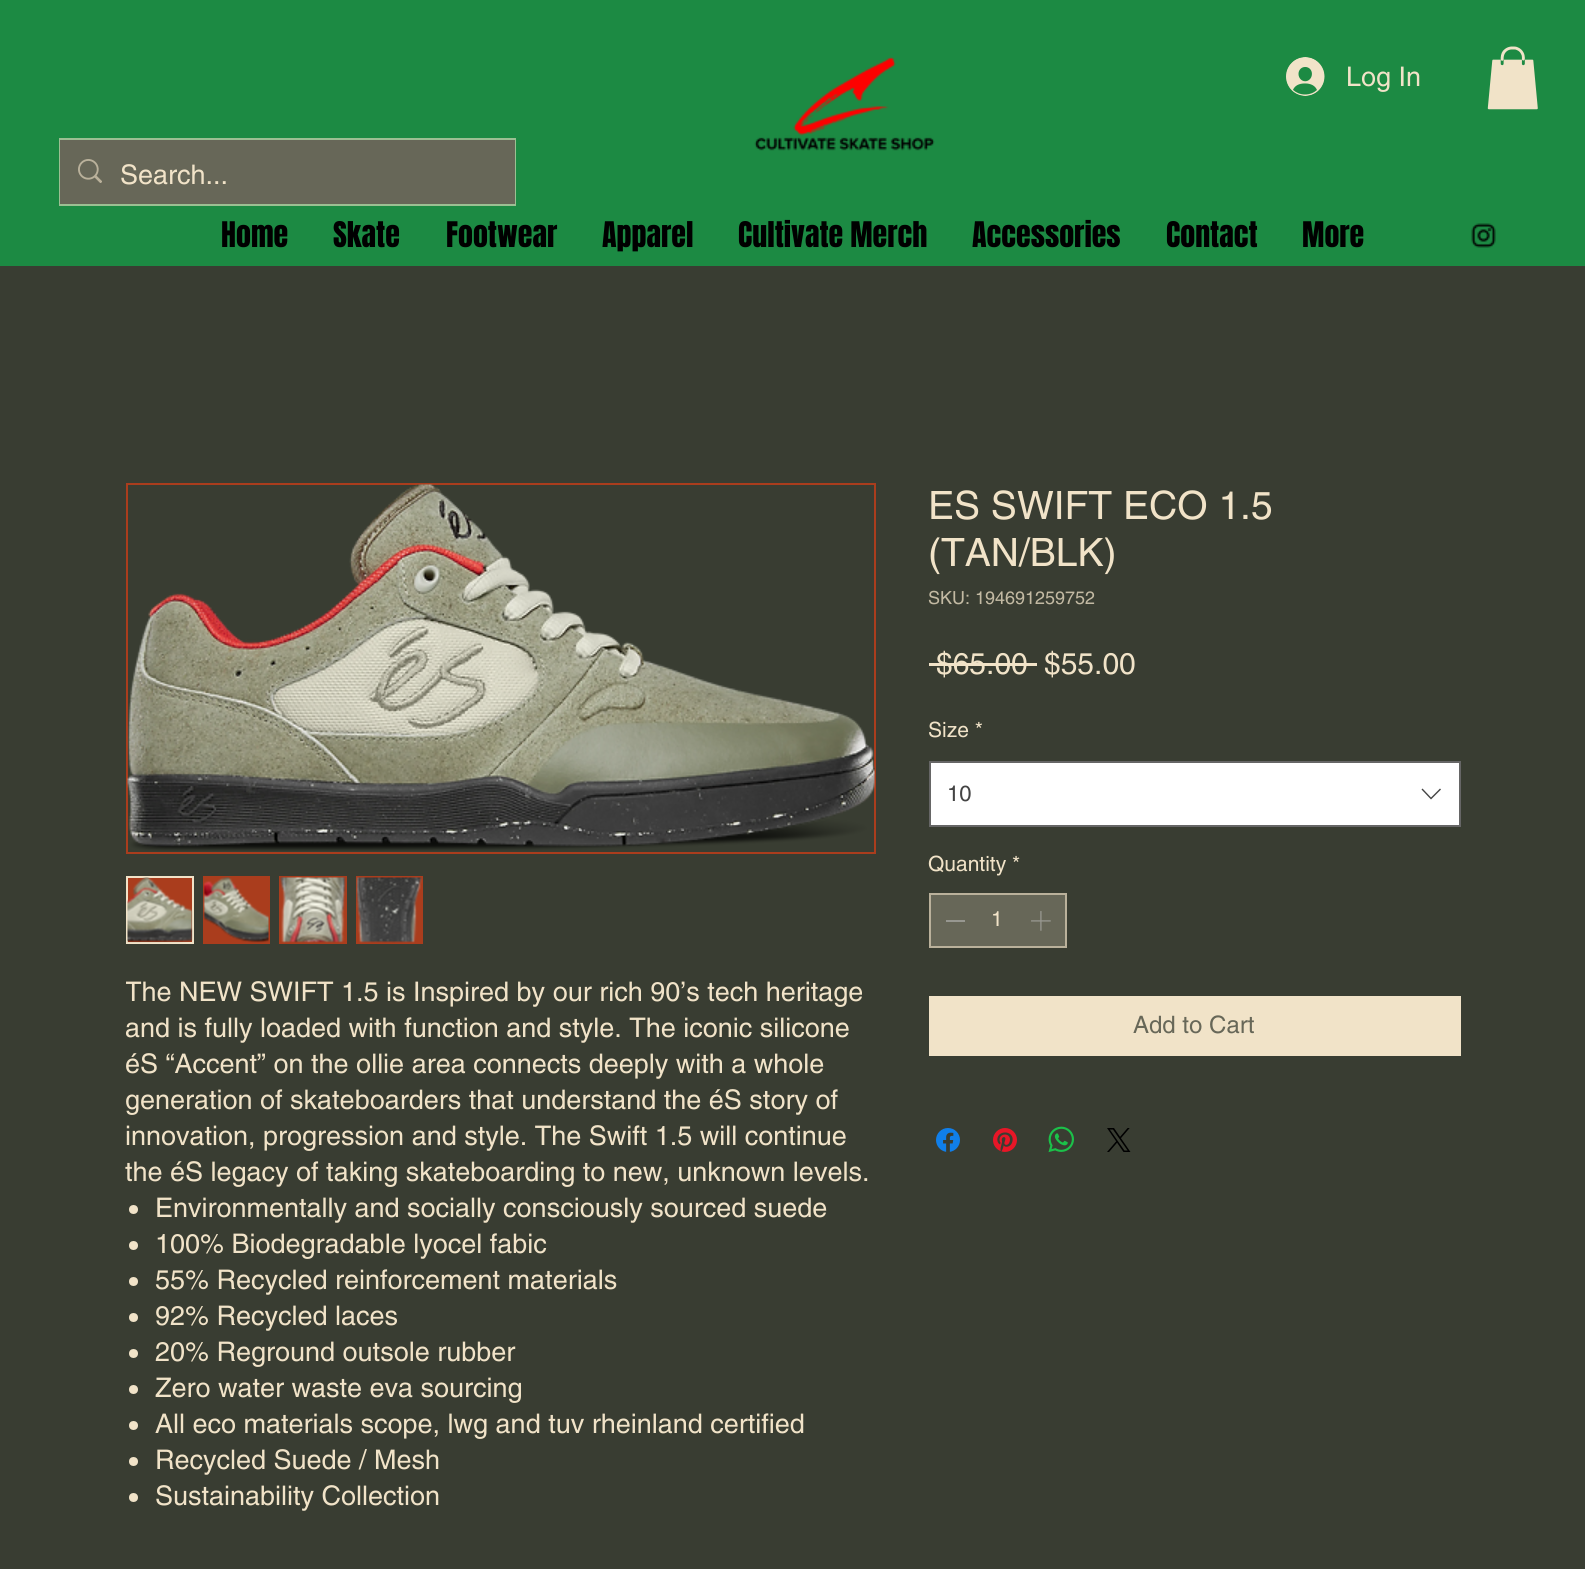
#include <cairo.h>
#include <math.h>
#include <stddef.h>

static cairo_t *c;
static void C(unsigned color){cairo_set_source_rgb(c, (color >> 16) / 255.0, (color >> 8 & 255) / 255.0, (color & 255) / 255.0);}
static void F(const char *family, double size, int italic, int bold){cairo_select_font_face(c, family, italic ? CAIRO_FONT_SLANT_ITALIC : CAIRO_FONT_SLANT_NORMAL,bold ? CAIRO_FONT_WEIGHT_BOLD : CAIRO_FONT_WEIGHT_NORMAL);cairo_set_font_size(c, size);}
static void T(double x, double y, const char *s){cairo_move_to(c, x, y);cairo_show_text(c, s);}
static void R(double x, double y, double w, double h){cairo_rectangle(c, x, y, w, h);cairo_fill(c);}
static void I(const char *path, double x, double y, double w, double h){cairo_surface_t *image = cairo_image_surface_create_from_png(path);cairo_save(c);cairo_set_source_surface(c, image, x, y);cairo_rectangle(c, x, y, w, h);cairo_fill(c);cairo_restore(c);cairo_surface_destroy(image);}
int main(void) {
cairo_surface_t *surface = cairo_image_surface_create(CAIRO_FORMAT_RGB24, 1585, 1569);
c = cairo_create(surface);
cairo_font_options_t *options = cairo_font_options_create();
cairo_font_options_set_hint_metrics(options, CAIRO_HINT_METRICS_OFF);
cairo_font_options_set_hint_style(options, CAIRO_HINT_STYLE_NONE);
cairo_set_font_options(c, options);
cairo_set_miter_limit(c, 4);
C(0x393d32);
cairo_paint(c);
C(0x1c8a43);
R(0,0,1585,266);
I("1.png",754,57,181,94);
I("2.png",1286,57,39,39);
F("helvetica",27,0,0);
C(0xf1e3c8);
T(1346,86,"Log In");
I("3.png",1487,46,51,64);
cairo_rectangle(c,60,139,455,66);
C(0x9cbf93);
cairo_stroke(c);
C(0x676758);
R(60,140,455,64);
I("4.png",78,159,24,24);
C(0xf1e3c8);
T(120,184,"Search...");
F("Anton",30,0,0);
C(0x000000);
T(221,247,"Home");
T(333,247,"Skate");
T(446,247,"Footwear");
T(602,247,"Apparel");
T(738,247,"Cultivate Merch");
T(972,247,"Accessories");
T(1166,247,"Contact");
T(1302,247,"More");
I("5.png",1471,223,25,25);
F("helvetica",39,0,0);
C(0xf1e3c8);
T(928,519,"ES SWIFT ECO 1.5");
T(928,566,"(TAN/BLK)");
F("helvetica",18,0,0);
C(0xc3baa3);
T(928,604,"SKU: 194691259752");
F("helvetica",30,0,0);
C(0xf1e3c8);
T(936,674,"$65.00");
R(929,663,108,3);
T(1044,674,"$55.00");
F("helvetica",21,0,0);
T(928,737,"Size *");
C(0xffffff);
cairo_rectangle(c,930,762,530,64);
cairo_fill_preserve(c);
C(0x666666);
cairo_stroke(c);
F("helvetica",22,0,0);
C(0x444444);
T(947,801,"10");
cairo_set_fill_rule(c,CAIRO_FILL_RULE_EVEN_ODD);
cairo_new_path(c);
cairo_move_to(c,1440,788.5);
cairo_line_to(c,1441,789.5);
cairo_line_to(c,1431,799.5);
cairo_line_to(c,1421.5,789.5);
cairo_line_to(c,1422.5,788.5);
cairo_line_to(c,1431,797.5);
cairo_close_path(c);
cairo_fill(c);
F("helvetica",21,0,0);
C(0xf1e3c8);
T(928,871,"Quantity *");
C(0x676758);
cairo_rectangle(c,930,894,136,53);
cairo_fill_preserve(c);
C(0xbab19b);
cairo_stroke(c);
C(0x979790);
R(946,920,19,2);
C(0xf1e3c8);
T(991,926,"1");
I("6.png",1031,911,20,20);
R(929,996,532,60);
F("helvetica",24,0,0);
C(0x676758);
T(1133,1033,"Add to Cart");
I("7.png",936,1128,24,24);
I("8.png",993,1128,24,24);
I("9.png",1048,1126,26,27);
I("10.png",1107,1128,24,24);
cairo_rectangle(c,127,484,748,369);
C(0xaa3d1d);
cairo_stroke(c);
I("11.png",127,484,748,367);
cairo_rectangle(c,127,877,66,66);
cairo_fill_preserve(c);
C(0xf1e3c8);
cairo_stroke(c);
I("12.png",127,877,66,66);
C(0xaa3d1d);
R(203,876,67,68);
I("13.png",203,877,66,66);
R(279,876,68,68);
I("14.png",280,877,66,66);
R(356,876,67,68);
I("15.png",356,877,66,66);
cairo_save(c);
cairo_set_fill_rule(c,CAIRO_FILL_RULE_WINDING);
cairo_rectangle(c,126,974,750,540);
cairo_clip(c);
F("helvetica",27,0,0);
C(0xf1e3c8);
T(125,1001,"The NEW SWIFT 1.5 is Inspired by our rich 90’s tech heritage");
cairo_restore(c);
F("helvetica",27,0,0);
C(0xf1e3c8);
T(125,1037,"and is fully loaded with function and style. The iconic silicone");
T(125,1073,"éS “Accent” on the ollie area connects deeply with a whole");
T(125,1109,"generation of skateboarders that understand the éS story of");
T(125,1145,"innovation, progression and style. The Swift 1.5 will continue");
T(125,1181,"the éS legacy of taking skateboarding to new, unknown levels.");
cairo_new_path(c);
cairo_arc(c,133.5,1209.5,4.5,0,2 * M_PI);
cairo_fill(c);
T(155,1217,"Environmentally and socially consciously sourced suede");
cairo_new_path(c);
cairo_arc(c,133.5,1245.5,4.5,0,2 * M_PI);
cairo_fill(c);
T(155,1253,"100% Biodegradable lyocel fabic");
cairo_new_path(c);
cairo_arc(c,133.5,1281.5,4.5,0,2 * M_PI);
cairo_fill(c);
T(155,1289,"55% Recycled reinforcement materials");
cairo_new_path(c);
cairo_arc(c,133.5,1317.5,4.5,0,2 * M_PI);
cairo_fill(c);
T(155,1325,"92% Recycled laces");
cairo_new_path(c);
cairo_arc(c,133.5,1353.5,4.5,0,2 * M_PI);
cairo_fill(c);
T(155,1361,"20% Reground outsole rubber");
cairo_new_path(c);
cairo_arc(c,133.5,1389.5,4.5,0,2 * M_PI);
cairo_fill(c);
T(155,1397,"Zero water waste eva sourcing");
cairo_new_path(c);
cairo_arc(c,133.5,1425.5,4.5,0,2 * M_PI);
cairo_fill(c);
T(155,1433,"All eco materials scope, lwg and tuv rheinland certified");
cairo_new_path(c);
cairo_arc(c,133.5,1461.5,4.5,0,2 * M_PI);
cairo_fill(c);
T(155,1469,"Recycled Suede / Mesh");
cairo_new_path(c);
cairo_arc(c,133.5,1497.5,4.5,0,2 * M_PI);
cairo_fill(c);
T(155,1505,"Sustainability Collection");
cairo_surface_write_to_png(surface, "o.png");
cairo_font_options_destroy(options);
cairo_destroy(c);
cairo_surface_destroy(surface);
return 0;
}
